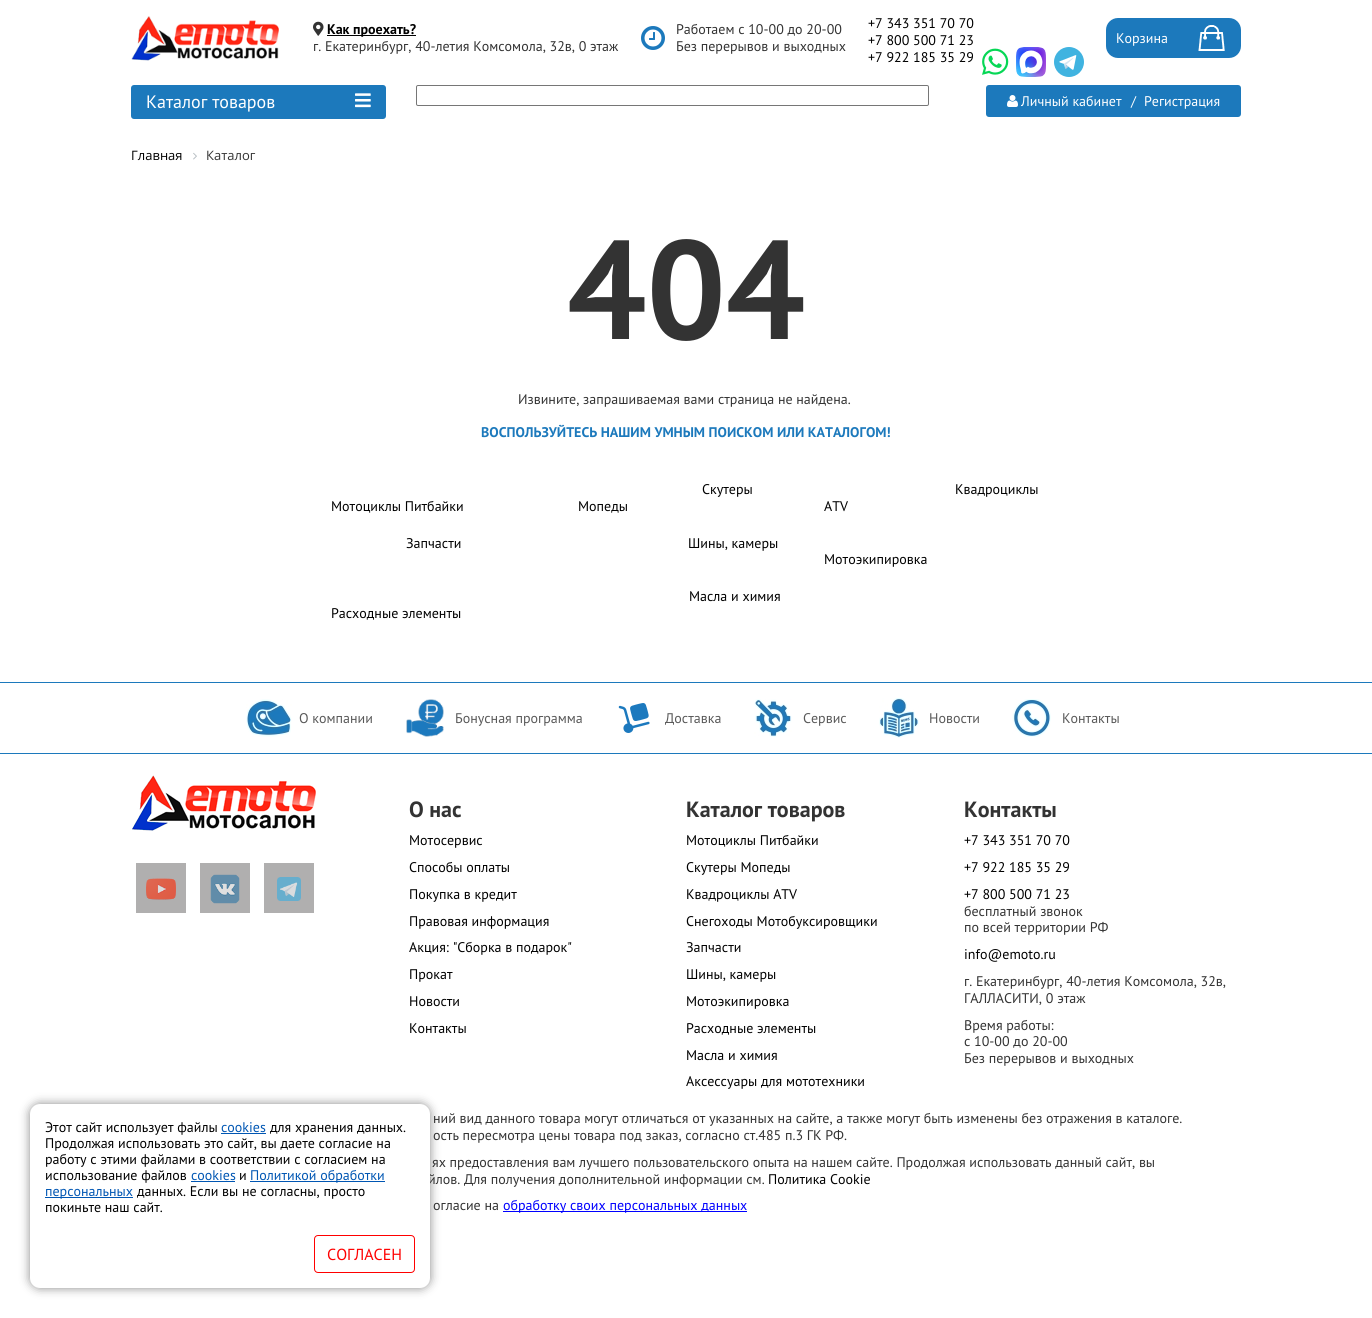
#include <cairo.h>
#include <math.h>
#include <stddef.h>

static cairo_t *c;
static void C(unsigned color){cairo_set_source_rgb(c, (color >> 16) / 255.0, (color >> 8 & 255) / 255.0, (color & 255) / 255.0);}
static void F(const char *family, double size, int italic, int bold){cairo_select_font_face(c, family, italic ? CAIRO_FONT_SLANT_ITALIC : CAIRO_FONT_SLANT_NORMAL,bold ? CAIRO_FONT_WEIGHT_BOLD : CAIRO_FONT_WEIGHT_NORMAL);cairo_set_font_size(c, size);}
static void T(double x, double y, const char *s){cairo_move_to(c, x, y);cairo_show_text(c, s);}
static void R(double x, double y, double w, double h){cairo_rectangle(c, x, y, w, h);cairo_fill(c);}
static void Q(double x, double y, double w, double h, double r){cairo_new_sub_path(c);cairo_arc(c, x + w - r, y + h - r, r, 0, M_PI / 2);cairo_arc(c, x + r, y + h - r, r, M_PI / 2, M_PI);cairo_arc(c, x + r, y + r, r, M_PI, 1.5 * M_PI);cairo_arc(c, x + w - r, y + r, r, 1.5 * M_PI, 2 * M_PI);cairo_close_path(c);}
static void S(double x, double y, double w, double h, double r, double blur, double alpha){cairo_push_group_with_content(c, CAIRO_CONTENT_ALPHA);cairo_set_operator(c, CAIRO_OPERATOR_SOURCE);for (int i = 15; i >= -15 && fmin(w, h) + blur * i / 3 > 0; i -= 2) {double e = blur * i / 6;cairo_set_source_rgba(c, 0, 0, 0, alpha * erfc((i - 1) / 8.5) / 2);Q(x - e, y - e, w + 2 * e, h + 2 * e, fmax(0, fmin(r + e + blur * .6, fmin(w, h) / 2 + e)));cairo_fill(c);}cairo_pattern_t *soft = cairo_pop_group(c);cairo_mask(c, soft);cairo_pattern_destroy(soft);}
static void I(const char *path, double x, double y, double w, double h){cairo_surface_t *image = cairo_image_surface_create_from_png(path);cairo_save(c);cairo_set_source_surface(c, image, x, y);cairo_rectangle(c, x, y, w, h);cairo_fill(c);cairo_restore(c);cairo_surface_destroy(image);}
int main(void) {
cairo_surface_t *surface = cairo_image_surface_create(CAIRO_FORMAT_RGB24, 1372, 1318);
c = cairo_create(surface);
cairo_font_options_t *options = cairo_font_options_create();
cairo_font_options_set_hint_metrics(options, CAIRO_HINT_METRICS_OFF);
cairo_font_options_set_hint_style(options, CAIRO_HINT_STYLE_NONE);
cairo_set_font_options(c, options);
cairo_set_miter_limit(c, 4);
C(0xffffff);
cairo_paint(c);
I("1.png",131,16,148,45);
I("2.png",313,21,11,15);
C(0x000000);
R(327,35,89,1);
F("PT Sans",14,0,1);
T(327,34,"Как проехать?");
F("PT Sans",14,0,0);
C(0x333333);
T(313,51,"г. Екатеринбург, 40-летия Комсомола, 32в, 0 этаж");
I("3.png",641,26,24,24);
T(676,34,"Работаем с 10-00 до 20-00");
T(676,51,"Без перерывов и выходных");
C(0x000000);
T(868,28,"+7 343 351 70 70");
T(868,45,"+7 800 500 71 23");
T(868,62,"+7 922 185 35 29");
I("4.png",982,48,27,27);
I("5.png",1016,47,30,30);
I("6.png",1054,47,30,30);
C(0x1c79bc);
Q(1106,18,135,40,12);
cairo_fill(c);
C(0xffffff);
T(1116,43,"Корзина");
I("7.png",1198,25,27,26);
C(0x1c79bc);
Q(131,85,255,34,3);
cairo_fill(c);
F("PT Sans",18,0,0);
C(0xffffff);
T(146,108,"Каталог товаров");
I("8.png",355,93,16,15);
Q(416.5,85.5,512,20,1.5);
C(0x767676);
cairo_set_line_width(c,1);
cairo_stroke(c);
C(0x1c79bc);
Q(986,85,255,32,3);
cairo_fill(c);
I("9.png",1007,95,11,12);
F("PT Sans",14,0,0);
C(0xffffff);
T(1021,106,"Личный кабинет");
T(1131,106,"/");
T(1144,106,"Регистрация");
F("Open Sans",13,0,0);
C(0x000000);
T(131,160,"Главная");
I("10.png",193,152,4,8);
C(0x333333);
T(206,160,"Каталог");
F("PT Sans",140,0,1);
T(567,339,"404");
F("PT Sans",14,0,0);
T(518,404,"Извините, запрашиваемая вами страница не найдена.");
F("PT Sans",14,0,1);
C(0x1c79bc);
T(481,437,"ВОСПОЛЬЗУЙТЕСЬ НАШИМ УМНЫМ ПОИСКОМ ИЛИ КАТАЛОГОМ!");
F("PT Sans",14,0,0);
C(0x000000);
T(331,511,"Мотоциклы Питбайки");
T(702,494,"Скутеры");
T(578,511,"Мопеды");
T(955,494,"Квадроциклы");
T(824,511,"ATV");
T(406,548,"Запчасти");
T(688,548,"Шины, камеры");
T(824,564,"Мотоэкипировка");
T(689,601,"Масла и химия");
T(331,618,"Расходные элементы");
C(0x888888);
S(30,1104,400,184,10,5,1);
C(0x333333);
T(428,1184,"йлов. Для получения дополнительной информации см.");
C(0xffffff);
Q(30,1104,400,184,10);
cairo_fill(c);
C(0x000000);
T(45,1132,"Этот сайт использует файлы");
C(0x0056b3);
T(221,1132,"cookies");
R(221,1133,45,1);
C(0x000000);
T(270,1132,"для хранения данных.");
T(45,1148,"Продолжая использовать это сайт, вы даете согласие на");
T(45,1164,"работу с этими файлами в соответствии с согласием на");
T(45,1180,"использование файлов");
C(0x0056b3);
T(191,1180,"cookies");
R(191,1181,44,1);
C(0x000000);
T(239,1180,"и");
C(0x0056b3);
R(250,1181,135,1);
T(250,1180,"Политикой обработки");
R(45,1197,88,1);
T(45,1196,"персональных");
C(0x000000);
T(137,1196,"данных. Если вы не согласны, просто");
T(45,1212,"покиньте наш сайт.");
Q(314.5,1235.5,100,37,3.5);
C(0xff0000);
cairo_stroke(c);
F("PT Sans",16,0,0);
T(327,1260,"СОГЛАСЕН");
C(0x1c79bc);
R(0,682,1372,1);
R(0,753,1372,1);
I("11.png",246,699,46,38);
F("PT Sans",14,0,0);
C(0x595959);
T(299,723,"О компании");
I("12.png",406,699,38,38);
T(455,723,"Бонусная программа");
I("13.png",618,703,32,30);
T(665,723,"Доставка");
I("14.png",754,699,38,38);
T(803,723,"Сервис");
I("15.png",879,698,40,40);
T(929,723,"Новости");
I("16.png",1012,699,39,38);
T(1062,723,"Контакты");
I("17.png",132,775,184,56);
C(0xb0afaf);
R(136,863,50,50);
I("18.png",146,878,30,22);
R(200,863,50,50);
I("19.png",210,874,30,30);
R(264,863,50,50);
I("20.png",277,877,24,24);
F("PT Sans",22,0,1);
C(0x333333);
T(409,817,"О нас");
F("PT Sans",14,0,0);
C(0x000000);
T(409,845,"Мотосервис");
T(409,872,"Способы оплаты");
T(409,899,"Покупка в кредит");
T(409,926,"Правовая информация");
T(409,952,"Акция: \"Сборка в подарок\"");
T(409,979,"Прокат");
T(409,1006,"Новости");
T(409,1033,"Контакты");
F("PT Sans",22,0,1);
C(0x333333);
T(686,817,"Каталог товаров");
F("PT Sans",14,0,0);
C(0x000000);
T(686,845,"Мотоциклы Питбайки");
T(686,872,"Скутеры Мопеды");
T(686,899,"Квадроциклы ATV");
T(686,926,"Снегоходы Мотобуксировщики");
T(686,952,"Запчасти");
T(686,979,"Шины, камеры");
T(686,1006,"Мотоэкипировка");
T(686,1033,"Расходные элементы");
T(686,1060,"Масла и химия");
T(686,1086,"Аксессуары для мототехники");
F("PT Sans",22,0,1);
C(0x333333);
T(964,817,"Контакты");
F("PT Sans",14,0,0);
C(0x000000);
T(964,845,"+7 343 351 70 70");
T(964,872,"+7 922 185 35 29");
T(964,899,"+7 800 500 71 23");
C(0x333333);
T(964,916,"бесплатный звонок");
T(964,932,"по всей территории РФ");
C(0x000000);
T(964,959,"info@emoto.ru");
C(0x333333);
T(964,986,"г. Екатеринбург, 40-летия Комсомола, 32в,");
T(964,1003,"ГАЛЛАСИТИ, 0 этаж");
T(964,1030,"Время работы:");
T(964,1046,"с 10-00 до 20-00");
T(964,1063,"Без перерывов и выходных");
T(433,1123,"ний вид данного товара могут отличаться от указанных на сайте, а также могут быть изменены без отражения в каталоге.");
T(433,1140,"ость пересмотра цены товара под заказ, согласно ст.485 п.3 ГК РФ.");
T(432,1167,"ях предоставления вам лучшего пользовательского опыта на нашем сайте. Продолжая использовать данный сайт, вы");
C(0x000000);
T(768,1184,"Политика Cookie");
C(0x333333);
T(433,1210,"огласие на");
C(0x0000ff);
R(503,1211,244,1);
T(503,1210,"обработку своих персональных данных");
cairo_surface_write_to_png(surface, "o.png");
cairo_font_options_destroy(options);
cairo_destroy(c);
cairo_surface_destroy(surface);
return 0;
}
